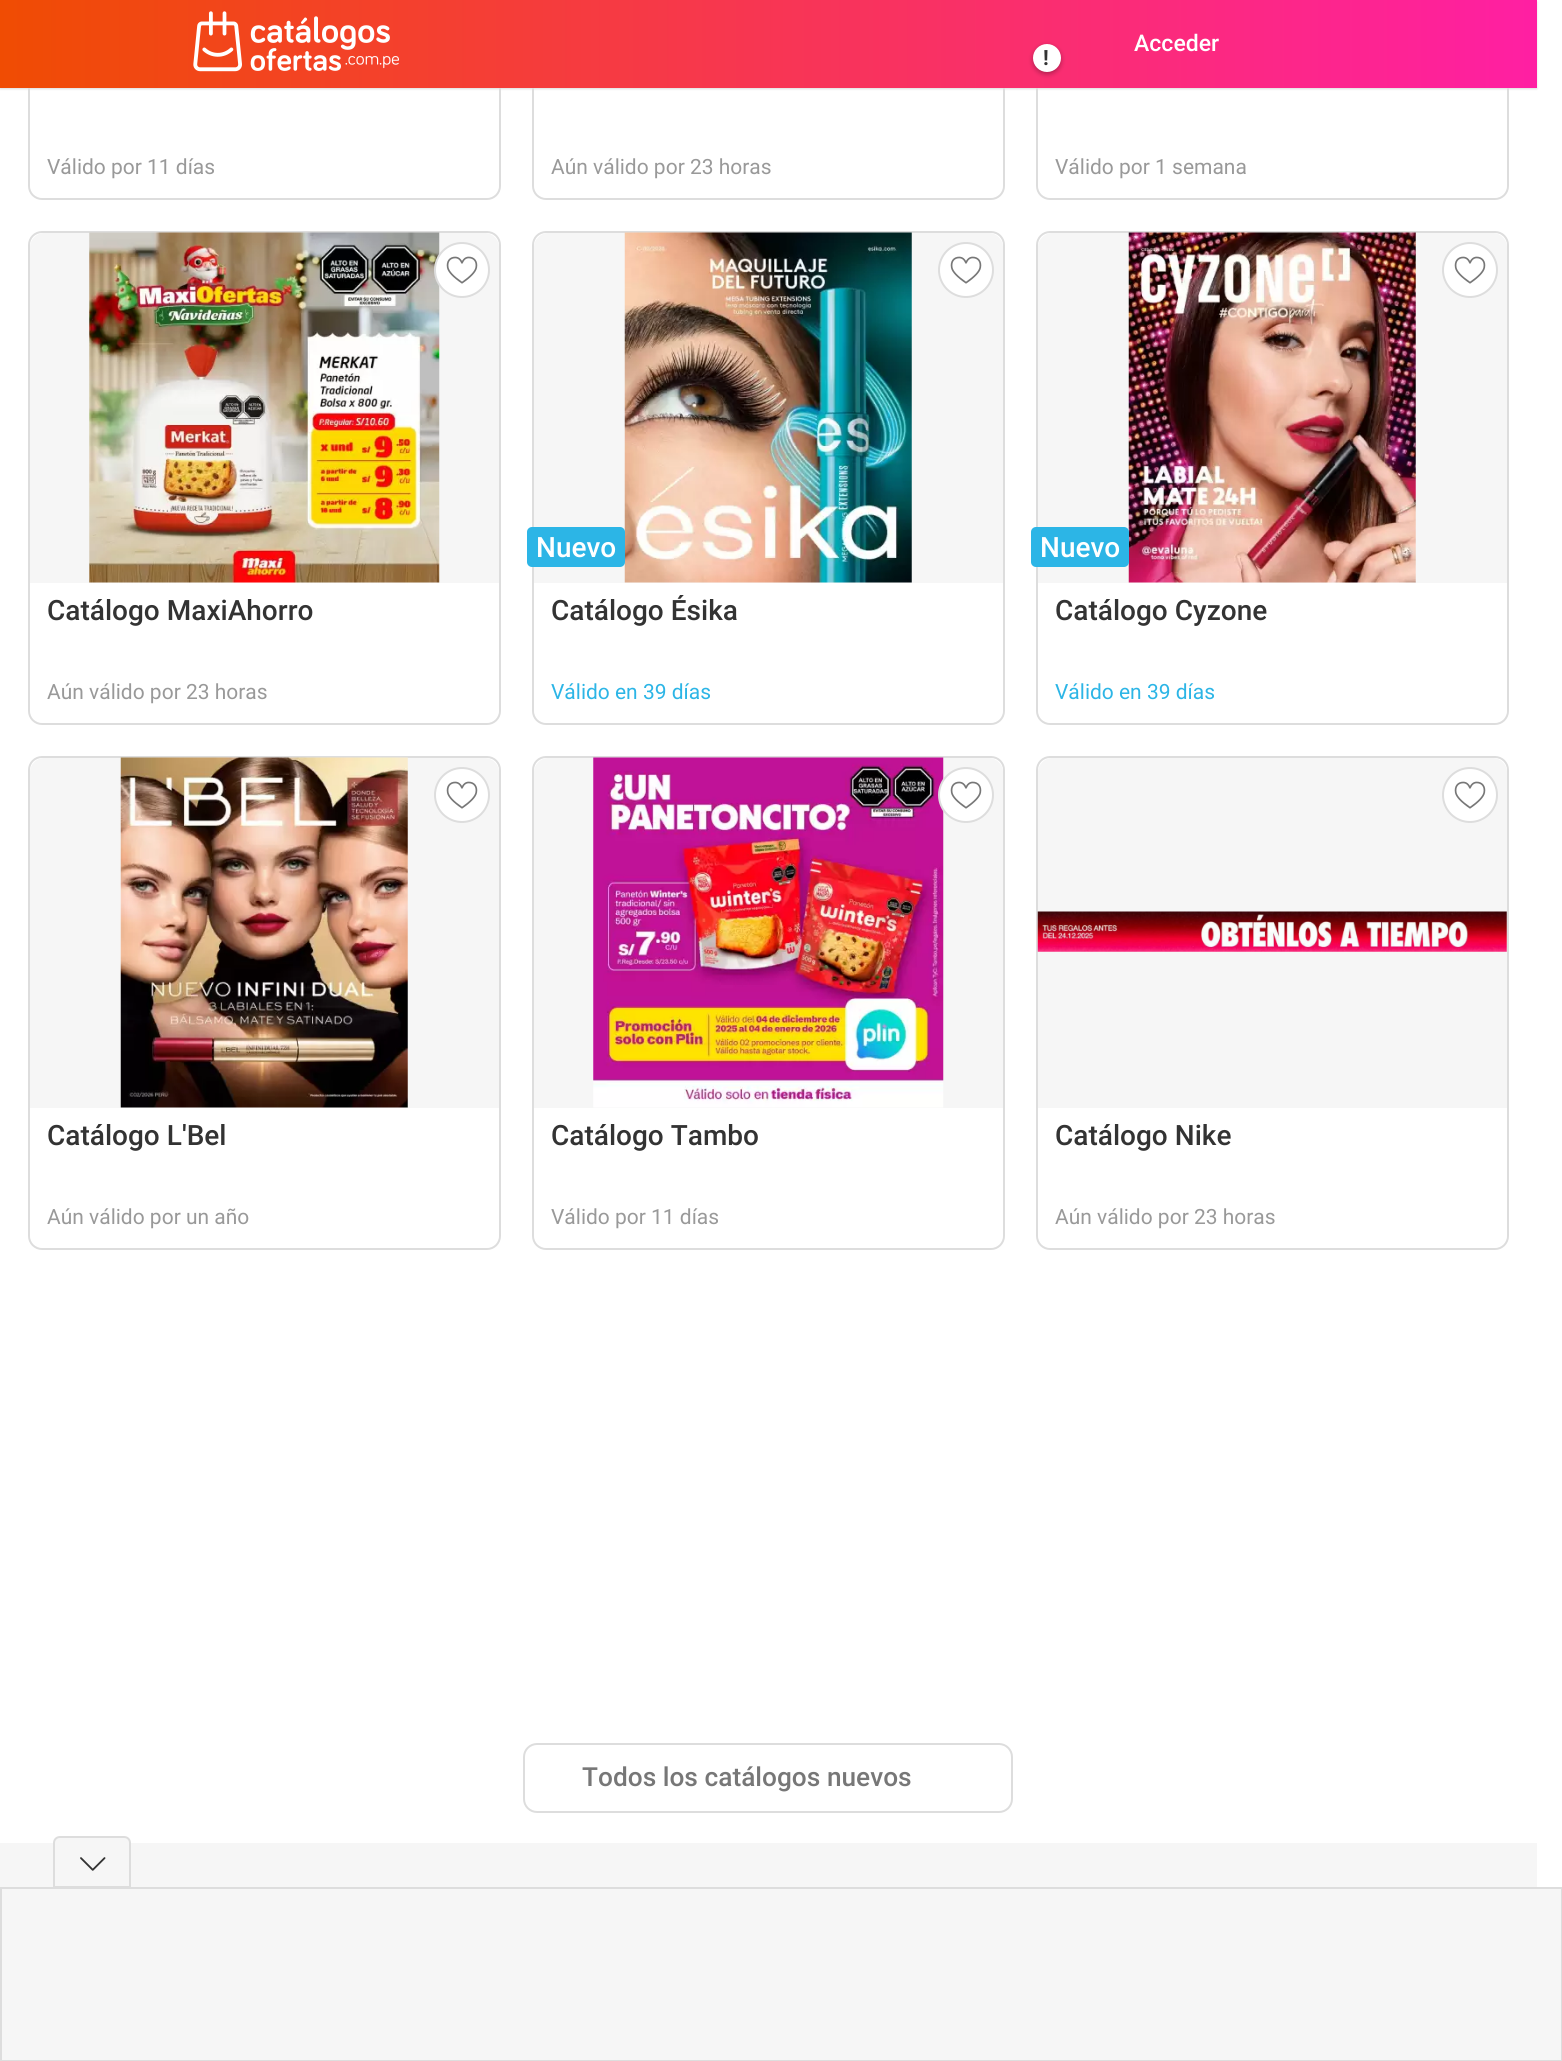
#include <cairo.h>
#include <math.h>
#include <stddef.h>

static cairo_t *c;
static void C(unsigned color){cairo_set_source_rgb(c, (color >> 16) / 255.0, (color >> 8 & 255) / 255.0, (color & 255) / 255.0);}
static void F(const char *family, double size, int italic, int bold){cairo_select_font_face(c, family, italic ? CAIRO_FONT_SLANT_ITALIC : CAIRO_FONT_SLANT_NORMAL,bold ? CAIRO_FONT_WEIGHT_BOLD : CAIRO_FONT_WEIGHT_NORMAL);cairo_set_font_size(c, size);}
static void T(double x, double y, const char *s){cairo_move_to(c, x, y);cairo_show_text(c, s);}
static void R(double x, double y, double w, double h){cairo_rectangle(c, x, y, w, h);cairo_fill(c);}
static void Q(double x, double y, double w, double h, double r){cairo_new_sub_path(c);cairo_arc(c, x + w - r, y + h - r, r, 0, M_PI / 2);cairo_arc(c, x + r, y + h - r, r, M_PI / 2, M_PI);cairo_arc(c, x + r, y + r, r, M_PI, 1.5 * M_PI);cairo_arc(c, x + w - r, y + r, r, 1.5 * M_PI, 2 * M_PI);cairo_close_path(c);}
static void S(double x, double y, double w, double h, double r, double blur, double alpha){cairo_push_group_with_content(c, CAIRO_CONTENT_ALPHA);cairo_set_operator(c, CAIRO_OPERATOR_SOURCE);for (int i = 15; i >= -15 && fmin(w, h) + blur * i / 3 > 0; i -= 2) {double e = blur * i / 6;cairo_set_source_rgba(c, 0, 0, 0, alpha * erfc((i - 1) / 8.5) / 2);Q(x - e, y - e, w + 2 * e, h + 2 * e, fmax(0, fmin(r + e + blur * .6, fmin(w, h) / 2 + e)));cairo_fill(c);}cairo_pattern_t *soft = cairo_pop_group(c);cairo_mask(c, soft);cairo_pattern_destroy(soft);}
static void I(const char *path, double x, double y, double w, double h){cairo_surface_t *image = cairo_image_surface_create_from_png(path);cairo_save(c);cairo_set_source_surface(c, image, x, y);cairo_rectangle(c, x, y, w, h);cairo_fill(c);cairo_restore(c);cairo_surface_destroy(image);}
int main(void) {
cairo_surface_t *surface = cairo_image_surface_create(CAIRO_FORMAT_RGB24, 1562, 2061);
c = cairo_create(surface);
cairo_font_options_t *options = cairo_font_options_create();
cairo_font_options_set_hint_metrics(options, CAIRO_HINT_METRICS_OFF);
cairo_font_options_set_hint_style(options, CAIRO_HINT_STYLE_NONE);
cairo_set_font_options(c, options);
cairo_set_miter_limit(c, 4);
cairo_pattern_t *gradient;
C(0xffffff);
cairo_paint(c);
Q(29,-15,471,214,13);
C(0xdddddd);
cairo_stroke(c);
C(0xffffff);
cairo_new_path(c);
cairo_move_to(c,30,58);
cairo_line_to(c,499,58);
cairo_line_to(c,499,184);
cairo_curve_to(c,499,191.5,492.5,198,485,198);
cairo_line_to(c,44,198);
cairo_curve_to(c,36.5,198,30,191.5,30,184);
cairo_close_path(c);
cairo_fill(c);
Q(533,-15,471,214,13);
C(0xdddddd);
cairo_stroke(c);
C(0xffffff);
cairo_new_path(c);
cairo_move_to(c,534,58);
cairo_line_to(c,1003,58);
cairo_line_to(c,1003,184);
cairo_curve_to(c,1003,191.5,996.5,198,989,198);
cairo_line_to(c,548,198);
cairo_curve_to(c,540.5,198,534,191.5,534,184);
cairo_close_path(c);
cairo_fill(c);
Q(1037,-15,471,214,13);
C(0xdddddd);
cairo_stroke(c);
C(0xffffff);
cairo_new_path(c);
cairo_move_to(c,1038,58);
cairo_line_to(c,1507,58);
cairo_line_to(c,1507,184);
cairo_curve_to(c,1507,191.5,1500.5,198,1493,198);
cairo_line_to(c,1052,198);
cairo_curve_to(c,1044.5,198,1038,191.5,1038,184);
cairo_close_path(c);
cairo_fill(c);
C(0xdddddd);
S(0,2,1537,87,0,1,1);
gradient = cairo_pattern_create_linear(1537,44,0,44);
cairo_pattern_add_color_stop_rgba(gradient,0,1,0.122,0.639,1);
cairo_pattern_add_color_stop_rgba(gradient,1,0.941,0.298,0.012,1);
cairo_set_source(c,gradient);
cairo_pattern_destroy(gradient);
R(0,0,1537,88);
I("1.png",193,11,206,61);
F("Roboto Medium",23,0,0);
C(0xffffff);
T(1134,51,"Acceder");
C(0x000000);
S(1033,46,28,28,14,2.5,.3);
C(0xffffff);
cairo_arc(c,1047,58,14,0,2 * M_PI);
cairo_fill(c);
F("Roboto",21,0,1);
C(0x333333);
T(1043,65,"!");
F("Roboto",21,0,0);
C(0x999999);
T(47,174,"Válido por 11 días");
T(551,174,"Aún válido por 23 horas");
T(1055,174,"Válido por 1 semana");
Q(29,232,471,492,13);
C(0xdddddd);
cairo_stroke(c);
C(0xf6f6f6);
cairo_new_path(c);
cairo_move_to(c,44,233);
cairo_line_to(c,485,233);
cairo_curve_to(c,492.5,233,499,239.5,499,247);
cairo_line_to(c,499,583);
cairo_line_to(c,30,583);
cairo_line_to(c,30,247);
cairo_curve_to(c,30,239.5,36.5,233,44,233);
cairo_close_path(c);
cairo_fill(c);
I("2.png",89,232,351,351);
C(0xffffff);
cairo_arc(c,462,270,27,0,2 * M_PI);
cairo_fill_preserve(c);
C(0xdddddd);
cairo_stroke(c);
I("3.png",446,256,32,28);
C(0xffffff);
cairo_new_path(c);
cairo_move_to(c,30,583);
cairo_line_to(c,499,583);
cairo_line_to(c,499,709);
cairo_curve_to(c,499,716.5,492.5,723,485,723);
cairo_line_to(c,44,723);
cairo_curve_to(c,36.5,723,30,716.5,30,709);
cairo_close_path(c);
cairo_fill(c);
F("Roboto Medium",28,0,0);
C(0x333333);
T(47,620,"Catálogo MaxiAhorro");
F("Roboto",21,0,0);
C(0x999999);
T(47,699,"Aún válido por 23 horas");
Q(533,232,471,492,13);
C(0xdddddd);
cairo_stroke(c);
C(0xf6f6f6);
cairo_new_path(c);
cairo_move_to(c,548,233);
cairo_line_to(c,989,233);
cairo_curve_to(c,996.5,233,1003,239.5,1003,247);
cairo_line_to(c,1003,583);
cairo_line_to(c,534,583);
cairo_line_to(c,534,247);
cairo_curve_to(c,534,239.5,540.5,233,548,233);
cairo_close_path(c);
cairo_fill(c);
C(0xffffff);
cairo_arc(c,966,270,27,0,2 * M_PI);
cairo_fill_preserve(c);
C(0xdddddd);
cairo_stroke(c);
I("3.png",950,256,32,28);
I("4.png",624,232,288,351);
C(0x2cb5e6);
Q(527,527,98,40,5);
cairo_fill(c);
F("Roboto Medium",28,0,0);
C(0xffffff);
T(536,557,"Nuevo");
cairo_new_path(c);
cairo_move_to(c,534,583);
cairo_line_to(c,1003,583);
cairo_line_to(c,1003,709);
cairo_curve_to(c,1003,716.5,996.5,723,989,723);
cairo_line_to(c,548,723);
cairo_curve_to(c,540.5,723,534,716.5,534,709);
cairo_close_path(c);
cairo_fill(c);
cairo_save(c);
cairo_rectangle(c,551,595,434,33);
cairo_clip(c);
C(0x333333);
T(551,620,"Catálogo Ésika");
cairo_restore(c);
F("Roboto",21,0,0);
C(0x2cb5e6);
T(551,699,"Válido en 39 días");
Q(1037,232,471,492,13);
C(0xdddddd);
cairo_stroke(c);
C(0xf6f6f6);
cairo_new_path(c);
cairo_move_to(c,1052,233);
cairo_line_to(c,1493,233);
cairo_curve_to(c,1500.5,233,1507,239.5,1507,247);
cairo_line_to(c,1507,583);
cairo_line_to(c,1038,583);
cairo_line_to(c,1038,247);
cairo_curve_to(c,1038,239.5,1044.5,233,1052,233);
cairo_close_path(c);
cairo_fill(c);
C(0xffffff);
cairo_arc(c,1470,270,27,0,2 * M_PI);
cairo_fill_preserve(c);
C(0xdddddd);
cairo_stroke(c);
I("3.png",1454,256,32,28);
I("5.png",1128,232,288,351);
C(0x2cb5e6);
Q(1031,527,98,40,5);
cairo_fill(c);
F("Roboto Medium",28,0,0);
C(0xffffff);
T(1040,557,"Nuevo");
cairo_new_path(c);
cairo_move_to(c,1038,583);
cairo_line_to(c,1507,583);
cairo_line_to(c,1507,709);
cairo_curve_to(c,1507,716.5,1500.5,723,1493,723);
cairo_line_to(c,1052,723);
cairo_curve_to(c,1044.5,723,1038,716.5,1038,709);
cairo_close_path(c);
cairo_fill(c);
C(0x333333);
T(1055,620,"Catálogo Cyzone");
F("Roboto",21,0,0);
C(0x2cb5e6);
T(1055,699,"Válido en 39 días");
Q(29,757,471,492,13);
C(0xdddddd);
cairo_stroke(c);
C(0xf6f6f6);
cairo_new_path(c);
cairo_move_to(c,44,758);
cairo_line_to(c,485,758);
cairo_curve_to(c,492.5,758,499,764.5,499,772);
cairo_line_to(c,499,1108);
cairo_line_to(c,30,1108);
cairo_line_to(c,30,772);
cairo_curve_to(c,30,764.5,36.5,758,44,758);
cairo_close_path(c);
cairo_fill(c);
I("6.png",120,757,288,351);
C(0xffffff);
cairo_arc(c,462,795,27,0,2 * M_PI);
cairo_fill_preserve(c);
C(0xdddddd);
cairo_stroke(c);
I("3.png",446,781,32,28);
C(0xffffff);
cairo_new_path(c);
cairo_move_to(c,30,1108);
cairo_line_to(c,499,1108);
cairo_line_to(c,499,1234);
cairo_curve_to(c,499,1241.5,492.5,1248,485,1248);
cairo_line_to(c,44,1248);
cairo_curve_to(c,36.5,1248,30,1241.5,30,1234);
cairo_close_path(c);
cairo_fill(c);
F("Roboto Medium",28,0,0);
C(0x333333);
T(47,1145,"Catálogo L'Bel");
F("Roboto",21,0,0);
C(0x999999);
T(47,1224,"Aún válido por un año");
Q(533,757,471,492,13);
C(0xdddddd);
cairo_stroke(c);
C(0xf6f6f6);
cairo_new_path(c);
cairo_move_to(c,548,758);
cairo_line_to(c,989,758);
cairo_curve_to(c,996.5,758,1003,764.5,1003,772);
cairo_line_to(c,1003,1108);
cairo_line_to(c,534,1108);
cairo_line_to(c,534,772);
cairo_curve_to(c,534,764.5,540.5,758,548,758);
cairo_close_path(c);
cairo_fill(c);
I("7.png",593,757,351,351);
C(0xffffff);
cairo_arc(c,966,795,27,0,2 * M_PI);
cairo_fill_preserve(c);
C(0xdddddd);
cairo_stroke(c);
I("3.png",950,781,32,28);
C(0xffffff);
cairo_new_path(c);
cairo_move_to(c,534,1108);
cairo_line_to(c,1003,1108);
cairo_line_to(c,1003,1234);
cairo_curve_to(c,1003,1241.5,996.5,1248,989,1248);
cairo_line_to(c,548,1248);
cairo_curve_to(c,540.5,1248,534,1241.5,534,1234);
cairo_close_path(c);
cairo_fill(c);
F("Roboto Medium",28,0,0);
C(0x333333);
T(551,1145,"Catálogo Tambo");
F("Roboto",21,0,0);
C(0x999999);
T(551,1224,"Válido por 11 días");
Q(1037,757,471,492,13);
C(0xdddddd);
cairo_stroke(c);
C(0xf6f6f6);
cairo_new_path(c);
cairo_move_to(c,1052,758);
cairo_line_to(c,1493,758);
cairo_curve_to(c,1500.5,758,1507,764.5,1507,772);
cairo_line_to(c,1507,1108);
cairo_line_to(c,1038,1108);
cairo_line_to(c,1038,772);
cairo_curve_to(c,1038,764.5,1044.5,758,1052,758);
cairo_close_path(c);
cairo_fill(c);
I("8.png",1037,911,470,41);
C(0xffffff);
cairo_arc(c,1470,795,27,0,2 * M_PI);
cairo_fill_preserve(c);
C(0xdddddd);
cairo_stroke(c);
I("3.png",1454,781,32,28);
C(0xffffff);
cairo_new_path(c);
cairo_move_to(c,1038,1108);
cairo_line_to(c,1507,1108);
cairo_line_to(c,1507,1234);
cairo_curve_to(c,1507,1241.5,1500.5,1248,1493,1248);
cairo_line_to(c,1052,1248);
cairo_curve_to(c,1044.5,1248,1038,1241.5,1038,1234);
cairo_close_path(c);
cairo_fill(c);
F("Roboto Medium",28,0,0);
C(0x333333);
T(1055,1145,"Catálogo Nike");
F("Roboto",21,0,0);
C(0x999999);
T(1055,1224,"Aún válido por 23 horas");
Q(524,1744,488,68,13);
C(0xdddddd);
cairo_stroke(c);
F("Roboto Medium",26.25,0,0);
C(0x777777);
T(582,1786,"Todos los catálogos nuevos");
C(0xf6f6f6);
cairo_rectangle(c,1,1888,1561,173);
cairo_fill_preserve(c);
C(0xdddddd);
cairo_stroke(c);
C(0xf6f6f6);
R(0,1843,1537,44);
cairo_new_path(c);
cairo_move_to(c,60,1837);
cairo_line_to(c,124,1837);
cairo_curve_to(c,127.5,1837,130,1839.5,130,1843);
cairo_line_to(c,130,1887);
cairo_line_to(c,54,1887);
cairo_line_to(c,54,1843);
cairo_curve_to(c,54,1839.5,56.5,1837,60,1837);
cairo_close_path(c);
cairo_fill_preserve(c);
C(0xdddddd);
cairo_stroke(c);
I("9.png",80,1857,26,14);
cairo_surface_write_to_png(surface, "o.png");
cairo_font_options_destroy(options);
cairo_destroy(c);
cairo_surface_destroy(surface);
return 0;
}
